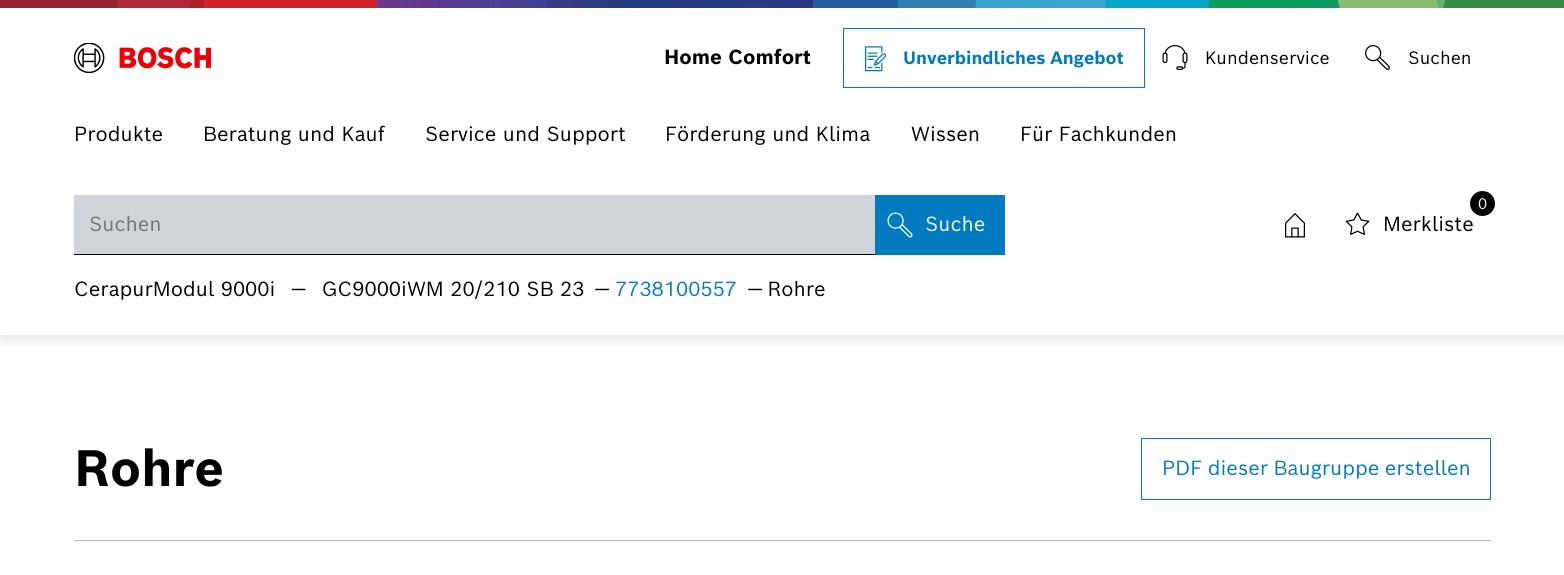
#include <cairo.h>
#include <math.h>
#include <stddef.h>

static cairo_t *c;
static void C(unsigned color){cairo_set_source_rgb(c, (color >> 16) / 255.0, (color >> 8 & 255) / 255.0, (color & 255) / 255.0);}
static void F(const char *family, double size, int italic, int bold){cairo_select_font_face(c, family, italic ? CAIRO_FONT_SLANT_ITALIC : CAIRO_FONT_SLANT_NORMAL,bold ? CAIRO_FONT_WEIGHT_BOLD : CAIRO_FONT_WEIGHT_NORMAL);cairo_set_font_size(c, size);}
static void T(double x, double y, const char *s){cairo_move_to(c, x, y);cairo_show_text(c, s);}
static void L(double x, double y, const char *s, double letter, double word){cairo_move_to(c, x, y);while (*s) {char ch[5] = {0};int n = 0;do ch[n++] = *s++; while ((*s & 0xC0) == 0x80);cairo_show_text(c, ch);cairo_rel_move_to(c, letter + word * (*ch == ' '), 0);}}
static void R(double x, double y, double w, double h){cairo_rectangle(c, x, y, w, h);cairo_fill(c);}
static void Q(double x, double y, double w, double h, double r){cairo_new_sub_path(c);cairo_arc(c, x + w - r, y + h - r, r, 0, M_PI / 2);cairo_arc(c, x + r, y + h - r, r, M_PI / 2, M_PI);cairo_arc(c, x + r, y + r, r, M_PI, 1.5 * M_PI);cairo_arc(c, x + w - r, y + r, r, 1.5 * M_PI, 2 * M_PI);cairo_close_path(c);}
static void S(double x, double y, double w, double h, double r, double blur, double alpha){cairo_push_group_with_content(c, CAIRO_CONTENT_ALPHA);cairo_set_operator(c, CAIRO_OPERATOR_SOURCE);for (int i = 15; i >= -15 && fmin(w, h) + blur * i / 3 > 0; i -= 2) {double e = blur * i / 6;cairo_set_source_rgba(c, 0, 0, 0, alpha * erfc((i - 1) / 8.5) / 2);Q(x - e, y - e, w + 2 * e, h + 2 * e, fmax(0, fmin(r + e + blur * .6, fmin(w, h) / 2 + e)));cairo_fill(c);}cairo_pattern_t *soft = cairo_pop_group(c);cairo_mask(c, soft);cairo_pattern_destroy(soft);}
static void I(const char *path, double x, double y, double w, double h){cairo_surface_t *image = cairo_image_surface_create_from_png(path);cairo_save(c);cairo_set_source_surface(c, image, x, y);cairo_rectangle(c, x, y, w, h);cairo_fill(c);cairo_restore(c);cairo_surface_destroy(image);}
int main(void) {
cairo_surface_t *surface = cairo_image_surface_create(CAIRO_FORMAT_RGB24, 1564, 575);
c = cairo_create(surface);
cairo_font_options_t *options = cairo_font_options_create();
cairo_font_options_set_hint_metrics(options, CAIRO_HINT_METRICS_OFF);
cairo_font_options_set_hint_style(options, CAIRO_HINT_STYLE_NONE);
cairo_set_font_options(c, options);
cairo_set_miter_limit(c, 4);
C(0xffffff);
cairo_paint(c);
cairo_save(c);
cairo_rectangle(c,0,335,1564,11);
cairo_clip(c);
C(0x000000);
S(0,165,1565,170,0,10,.16);
cairo_restore(c);
C(0xffffff);
R(0,150,1564,15);
I("1.png",0,0,1564,8);
I("2.png",74,43,137,30);
F("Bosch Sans",20,0,1);
C(0x000000);
T(664,64,"Home Comfort");
cairo_rectangle(c,843.5,28.5,301,59);
C(0x007bc0);
cairo_set_line_width(c,1);
cairo_stroke(c);
I("3.png",865,46,22,26);
F("Bosch Sans",17.5,0,1);
L(903,64,"Unverbindliches Angebot",0,-1);
I("4.png",1162,45,26,25);
F("Bosch Sans",17.5,0,0);
C(0x000000);
T(1205,64,"Kundenservice");
I("5.png",1365,45,25,25);
T(1408,64,"Suchen");
F("Bosch Sans",20,0,0);
T(74,141,"Produkte");
T(203,141,"Beratung und Kauf");
T(425,141,"Service und Support");
T(665,141,"Förderung und Klima");
T(911,141,"Wissen");
T(1020,141,"Für Fachkunden");
C(0xd0d4d8);
R(74,195,801,59);
C(0x000000);
R(74,254,801,1);
C(0x757575);
T(89,231,"Suchen");
C(0x007bc0);
R(875,195,130,60);
I("6.png",887,212,26,26);
C(0xffffff);
T(925,231,"Suche");
I("7.png",1285,213,20,25);
C(0x000000);
cairo_arc(c,1482.5,203.5,12.5,0,2 * M_PI);
cairo_fill(c);
F("Bosch Sans",15,0,0);
C(0xffffff);
T(1478,209,"0");
I("8.png",1345,212,25,23);
F("Bosch Sans",20,0,0);
C(0x000000);
T(1383,231,"Merkliste");
T(74,296,"CerapurModul 9000i  —  GC9000iWM 20/210 SB 23");
T(596,296,"—");
C(0x007bc0);
T(615,296,"7738100557");
C(0x000000);
T(749,296,"— Rohre");
C(0xb2b9c0);
R(74,540,1417,1);
F("Bosch Sans",50,0,1);
C(0x000000);
T(74,486,"Rohre");
cairo_rectangle(c,1141.5,438.5,349,61);
C(0x007bc0);
cairo_stroke(c);
F("Bosch Sans",20,0,0);
L(1162,475,"PDF dieser Baugruppe erstellen",0,-1);
cairo_surface_write_to_png(surface, "o.png");
cairo_font_options_destroy(options);
cairo_destroy(c);
cairo_surface_destroy(surface);
return 0;
}
